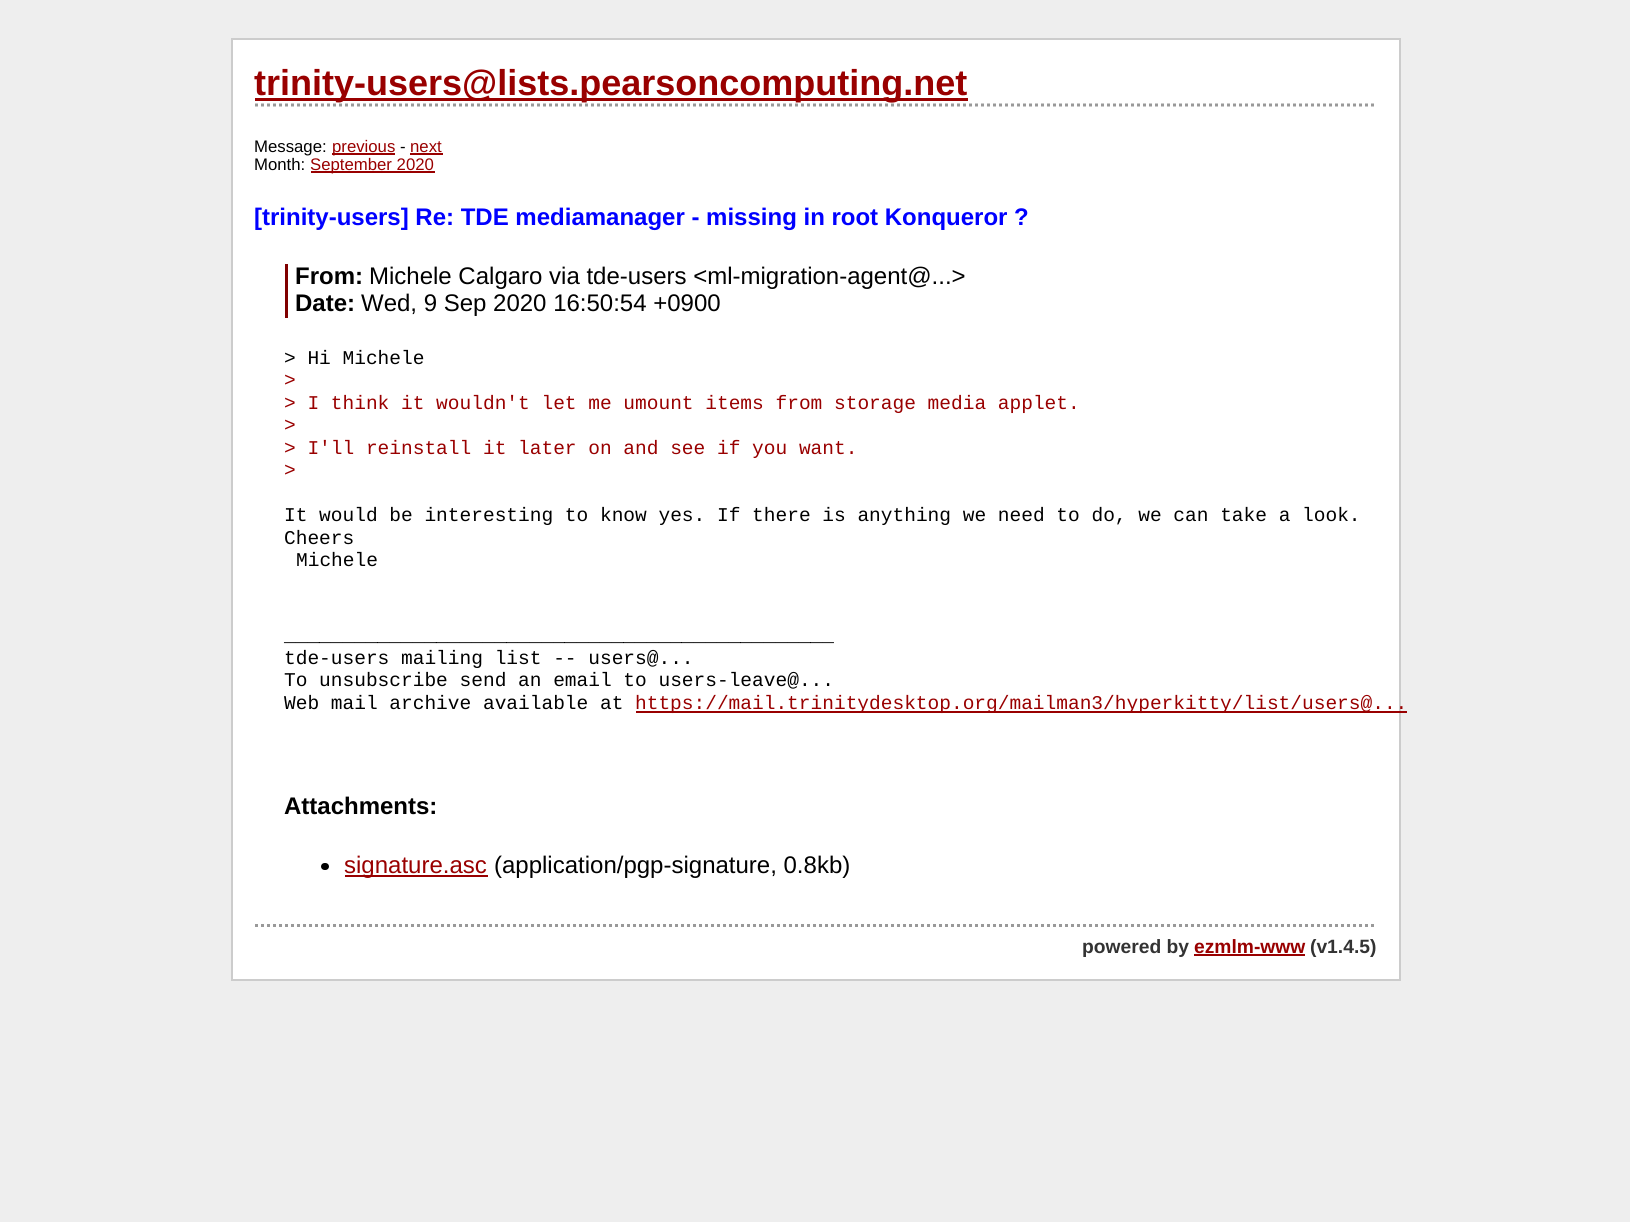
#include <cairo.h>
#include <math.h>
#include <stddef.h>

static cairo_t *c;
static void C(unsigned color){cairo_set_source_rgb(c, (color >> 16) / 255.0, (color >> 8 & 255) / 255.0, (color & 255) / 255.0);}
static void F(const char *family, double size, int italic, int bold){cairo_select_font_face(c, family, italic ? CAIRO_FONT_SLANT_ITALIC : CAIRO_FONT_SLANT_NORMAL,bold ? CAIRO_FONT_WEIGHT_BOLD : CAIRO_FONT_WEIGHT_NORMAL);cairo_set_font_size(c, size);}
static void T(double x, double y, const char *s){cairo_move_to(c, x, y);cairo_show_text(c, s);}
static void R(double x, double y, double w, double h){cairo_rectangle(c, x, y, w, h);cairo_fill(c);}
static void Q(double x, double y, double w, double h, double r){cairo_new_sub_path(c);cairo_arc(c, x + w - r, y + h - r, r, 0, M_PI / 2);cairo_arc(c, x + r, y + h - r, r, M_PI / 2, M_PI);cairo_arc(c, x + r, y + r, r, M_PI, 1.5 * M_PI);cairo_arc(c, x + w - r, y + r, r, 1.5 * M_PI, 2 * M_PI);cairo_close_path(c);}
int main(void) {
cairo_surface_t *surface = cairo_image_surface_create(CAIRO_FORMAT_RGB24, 1630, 1222);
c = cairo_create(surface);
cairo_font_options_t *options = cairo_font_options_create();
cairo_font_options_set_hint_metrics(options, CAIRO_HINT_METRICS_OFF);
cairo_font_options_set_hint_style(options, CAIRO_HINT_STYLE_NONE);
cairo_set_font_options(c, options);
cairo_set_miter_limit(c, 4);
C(0xeeeeee);
cairo_paint(c);
C(0xffffff);
cairo_rectangle(c,232,39,1168,941);
cairo_fill_preserve(c);
C(0xcccccc);
cairo_stroke(c);
cairo_new_path(c);
cairo_move_to(c,255,105);
cairo_line_to(c,1377,105);
C(0x999999);
cairo_set_line_width(c,3);
cairo_set_dash(c,(double[]){3,3},2,0);
cairo_stroke(c);
C(0x990000);
R(255,98,713,3);
F("Liberation Sans",36,0,1);
T(254,95,"trinity-users@lists.pearsoncomputing.net");
F("Liberation Sans",16.75,0,0);
C(0x000000);
T(254,152,"Message:");
C(0x990000);
R(332,153,63,2);
T(332,152,"previous");
C(0x000000);
T(400,152,"-");
C(0x990000);
T(410,152,"next");
R(410,153,33,2);
C(0x000000);
T(254,170,"Month:");
C(0x990000);
R(311,171,124,2);
T(310,170,"September 2020");
F("Liberation Sans",24,0,1);
C(0x0000ff);
T(254,225,"[trinity-users] Re: TDE mediamanager - missing in root Konqueror ?");
C(0x800000);
R(285,264,3,54);
C(0x000000);
T(295,284,"From:");
F("Liberation Sans",24,0,0);
T(369,284,"Michele Calgaro via tde-users <ml-migration-agent@...>");
F("Liberation Sans",24,0,1);
T(295,311,"Date:");
F("Liberation Sans",24,0,0);
T(361,311,"Wed, 9 Sep 2020 16:50:54 +0900");
F("Liberation Mono",19.5,0,0);
T(284,364,"> Hi Michele");
C(0x990000);
T(284,386,">");
T(284,409,"> I think it wouldn't let me umount items from storage media applet.");
T(284,431,">");
T(284,454,"> I'll reinstall it later on and see if you want.");
T(284,476,">");
C(0x000000);
T(284,521,"It would be interesting to know yes. If there is anything we need to do, we can take a look.");
T(284,544,"Cheers");
T(296,566,"Michele");
T(284,641,"_______________________________________________");
T(284,664,"tde-users mailing list -- users@...");
T(284,686,"To unsubscribe send an email to users-leave@...");
T(284,709,"Web mail archive available at");
C(0x990000);
R(636,711,771,2);
T(635,709,"https://mail.trinitydesktop.org/mailman3/hyperkitty/list/users@...");
F("Liberation Sans",24,0,1);
C(0x000000);
T(284,814,"Attachments:");
Q(321,863,8,7,3.5);
cairo_fill(c);
C(0x990000);
R(345,875,143,2);
F("Liberation Sans",24,0,0);
T(344,873,"signature.asc");
C(0x000000);
T(494,873,"(application/pgp-signature, 0.8kb)");
cairo_new_path(c);
cairo_move_to(c,255,925.5);
cairo_line_to(c,1377,925.5);
C(0x999999);
cairo_stroke(c);
F("Liberation Sans",19.25,0,1);
C(0x333333);
T(1082,953,"powered by");
C(0x990000);
T(1194,953,"ezmlm-www");
R(1194,954,111,2);
C(0x333333);
T(1310,953,"(v1.4.5)");
cairo_surface_write_to_png(surface, "o.png");
cairo_font_options_destroy(options);
cairo_destroy(c);
cairo_surface_destroy(surface);
return 0;
}
